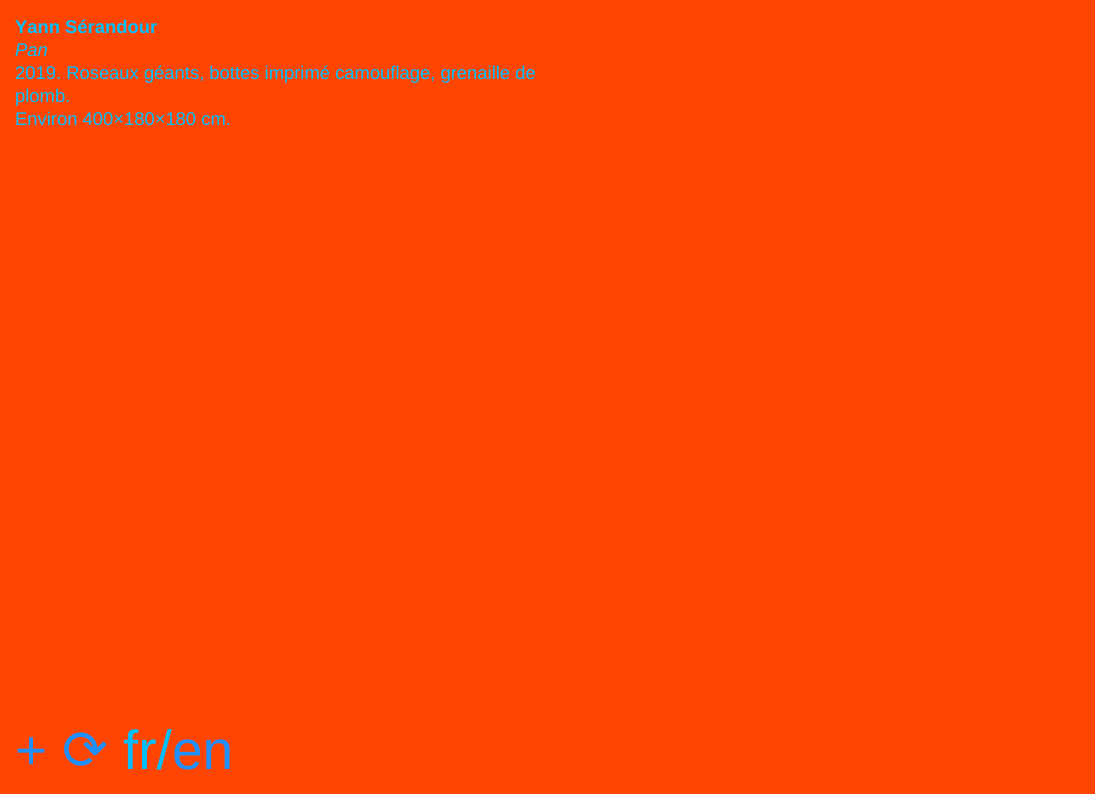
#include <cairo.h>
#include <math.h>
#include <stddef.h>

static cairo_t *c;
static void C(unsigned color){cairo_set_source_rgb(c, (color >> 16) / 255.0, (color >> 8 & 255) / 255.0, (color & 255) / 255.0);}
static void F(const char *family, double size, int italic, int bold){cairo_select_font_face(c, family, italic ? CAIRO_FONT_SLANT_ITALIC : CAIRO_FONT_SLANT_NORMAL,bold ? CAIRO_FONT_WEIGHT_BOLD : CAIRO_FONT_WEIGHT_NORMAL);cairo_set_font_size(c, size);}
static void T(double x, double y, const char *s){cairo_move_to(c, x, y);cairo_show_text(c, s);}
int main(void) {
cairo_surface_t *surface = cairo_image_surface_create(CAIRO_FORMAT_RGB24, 1095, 794);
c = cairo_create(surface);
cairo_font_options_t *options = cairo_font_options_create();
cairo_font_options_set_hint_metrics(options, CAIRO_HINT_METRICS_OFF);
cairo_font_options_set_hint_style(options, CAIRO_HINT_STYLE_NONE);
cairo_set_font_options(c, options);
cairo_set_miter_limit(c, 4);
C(0xff4500);
cairo_paint(c);
F("Liberation Sans",18.4,0,1);
C(0x00bfff);
T(15,33,"Yann Sérandour");
F("Liberation Sans",18.4,1,0);
T(15,56,"Pan");
F("Liberation Sans",18.4,0,0);
T(15,79,"2019. Roseaux géants, bottes imprimé camouflage, grenaille de");
T(15,102,"plomb.");
T(15,125,"Environ 400×180×180 cm.");
F("Liberation Sans",55,0,0);
C(0x1e90ff);
T(15,769,"+");
F("DejaVu Sans",55,0,0);
T(62,769,"⟳");
F("Liberation Sans",55,0,0);
C(0x00bfff);
T(123,769,"fr/");
C(0x1e90ff);
T(172,769,"en");
cairo_surface_write_to_png(surface, "o.png");
cairo_font_options_destroy(options);
cairo_destroy(c);
cairo_surface_destroy(surface);
return 0;
}
